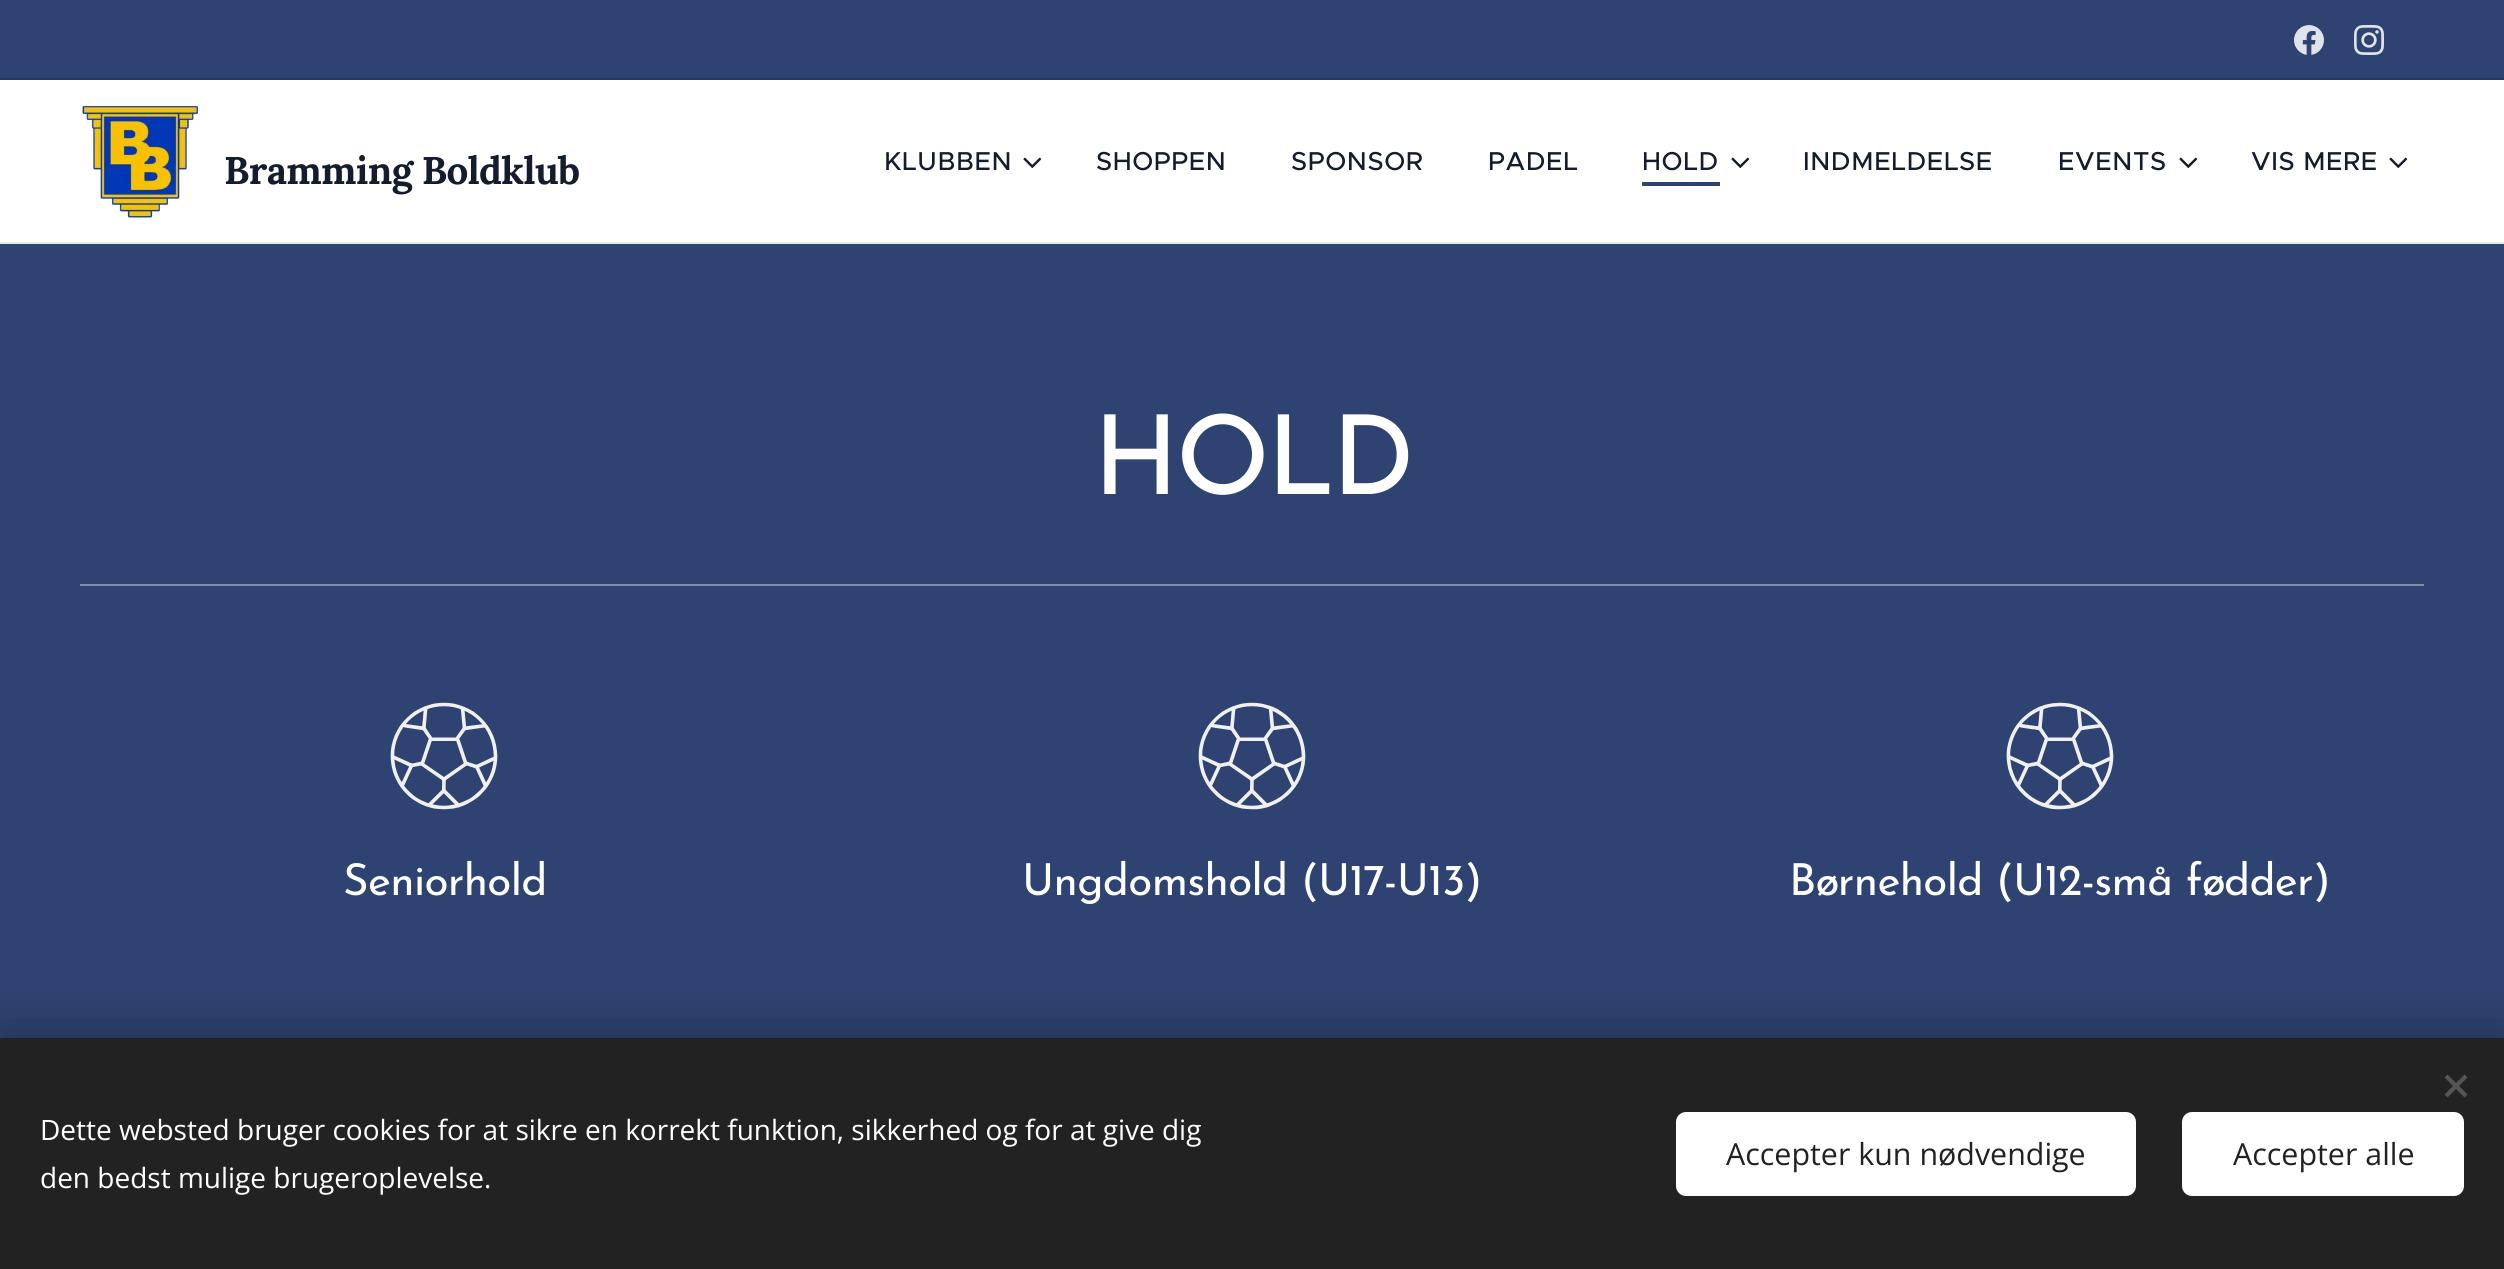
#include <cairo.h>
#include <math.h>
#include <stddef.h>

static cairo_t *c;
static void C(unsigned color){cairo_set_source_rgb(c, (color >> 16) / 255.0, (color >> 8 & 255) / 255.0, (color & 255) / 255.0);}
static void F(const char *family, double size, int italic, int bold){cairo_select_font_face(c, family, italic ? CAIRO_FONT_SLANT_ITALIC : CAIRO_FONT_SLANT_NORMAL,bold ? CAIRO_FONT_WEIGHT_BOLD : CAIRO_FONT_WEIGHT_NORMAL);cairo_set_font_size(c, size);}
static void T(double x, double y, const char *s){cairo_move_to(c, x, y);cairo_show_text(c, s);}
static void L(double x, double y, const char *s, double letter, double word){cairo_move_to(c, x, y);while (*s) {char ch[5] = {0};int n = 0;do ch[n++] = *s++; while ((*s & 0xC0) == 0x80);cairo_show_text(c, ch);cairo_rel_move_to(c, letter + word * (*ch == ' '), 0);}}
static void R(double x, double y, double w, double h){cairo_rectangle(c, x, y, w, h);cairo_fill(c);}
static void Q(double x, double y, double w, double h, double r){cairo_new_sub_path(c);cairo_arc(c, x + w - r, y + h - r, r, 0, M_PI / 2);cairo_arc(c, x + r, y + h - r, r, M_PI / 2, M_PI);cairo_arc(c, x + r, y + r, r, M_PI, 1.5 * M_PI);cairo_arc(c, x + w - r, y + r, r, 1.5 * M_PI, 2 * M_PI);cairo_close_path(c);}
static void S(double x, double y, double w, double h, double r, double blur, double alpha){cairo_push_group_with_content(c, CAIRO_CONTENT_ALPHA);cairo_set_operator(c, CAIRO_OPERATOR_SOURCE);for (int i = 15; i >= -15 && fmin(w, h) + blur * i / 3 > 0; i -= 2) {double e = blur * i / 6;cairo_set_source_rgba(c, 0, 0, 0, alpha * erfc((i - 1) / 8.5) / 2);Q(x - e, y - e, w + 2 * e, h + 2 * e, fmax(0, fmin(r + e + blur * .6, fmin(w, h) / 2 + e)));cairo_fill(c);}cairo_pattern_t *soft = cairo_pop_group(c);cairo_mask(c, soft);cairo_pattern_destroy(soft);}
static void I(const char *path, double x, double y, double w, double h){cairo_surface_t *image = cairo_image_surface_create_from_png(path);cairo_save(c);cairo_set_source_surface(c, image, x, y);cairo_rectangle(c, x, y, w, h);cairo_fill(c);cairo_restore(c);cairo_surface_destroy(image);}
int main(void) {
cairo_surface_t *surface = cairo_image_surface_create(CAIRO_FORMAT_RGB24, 2504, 1269);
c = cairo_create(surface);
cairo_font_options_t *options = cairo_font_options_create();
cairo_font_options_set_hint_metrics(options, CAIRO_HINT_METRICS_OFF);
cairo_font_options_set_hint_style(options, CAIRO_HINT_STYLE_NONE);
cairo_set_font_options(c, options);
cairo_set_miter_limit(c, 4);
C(0xffffff);
cairo_paint(c);
C(0x2e4371);
R(0,0,2504,78);
I("1.png",2294,25,30,30);
I("2.png",2354,25,30,30);
C(0x273960);
R(0,78,2504,2);
I("3.png",82,105,117,113);
F("Lora",38.5,0,1);
C(0x141c2d);
L(224,184,"Bramming Boldklub",-.65,0);
F("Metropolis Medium",26,0,0);
L(884,170,"KLUBBEN",.6,0);
I("4.png",1023,157,19,11);
L(1096,170,"SHOPPEN",.6,0);
L(1291,170,"SPONSOR",.6,0);
L(1488,170,"PADEL",.6,0);
L(1642,170,"HOLD",.6,0);
C(0x2e4371);
R(1642,182,78,4);
I("4.png",1731,157,19,11);
C(0x141c2d);
L(1803,170,"INDMELDELSE",.6,0);
L(2058,170,"EVENTS",.6,0);
I("4.png",2179,157,19,11);
L(2251,170,"VIS MERE",.6,0);
I("4.png",2389,157,19,11);
C(0xe8e8e8);
R(0,242,2504,2);
C(0x2e4371);
R(0,244,2504,794);
F("Josefin Sans",110,0,0);
C(0xffffff);
L(1093,494,"HOLD",-3.5,0);
C(0x828eaa);
R(80,584,2344,2);
I("5.png",390,702,108,108);
F("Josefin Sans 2",44,0,0);
C(0xffffff);
L(343,895,"Seniorhold",-.65,0);
I("6.png",1198,702,108,108);
L(1022,895,"Ungdomshold (U17-U13)",-.65,0);
I("7.png",2006,702,108,108);
L(1789,895,"Børnehold (U12-små fødder)",-.65,0);
C(0x000000);
S(0,1038,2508,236,0,25,.33);
C(0x222222);
R(0,1038,2504,231);
C(0x555555);
cairo_new_path(c);
cairo_move_to(c,2444.5,1094.5);
cairo_line_to(c,2464.5,1074.5);
cairo_line_to(c,2467.5,1077.5);
cairo_line_to(c,2447.5,1097.5);
cairo_close_path(c);
cairo_fill(c);
cairo_new_path(c);
cairo_move_to(c,2447.5,1074.5);
cairo_line_to(c,2467.5,1094.5);
cairo_line_to(c,2464.5,1097.5);
cairo_line_to(c,2444.5,1077.5);
cairo_close_path(c);
cairo_fill(c);
F("Open Sans",28,0,0);
C(0xffffff);
T(40,1140,"Dette websted bruger cookies for at sikre en korrekt funktion, sikkerhed og for at give dig");
T(40,1188,"den bedst mulige brugeroplevelse.");
Q(1676,1112,460,84,10);
cairo_fill(c);
F("Open Sans",30.4,0,0);
C(0x222222);
T(1726,1165,"Accepter kun nødvendige");
C(0xffffff);
Q(2182,1112,282,84,10);
cairo_fill(c);
C(0x222222);
T(2233,1165,"Accepter alle");
cairo_surface_write_to_png(surface, "o.png");
cairo_font_options_destroy(options);
cairo_destroy(c);
cairo_surface_destroy(surface);
return 0;
}
